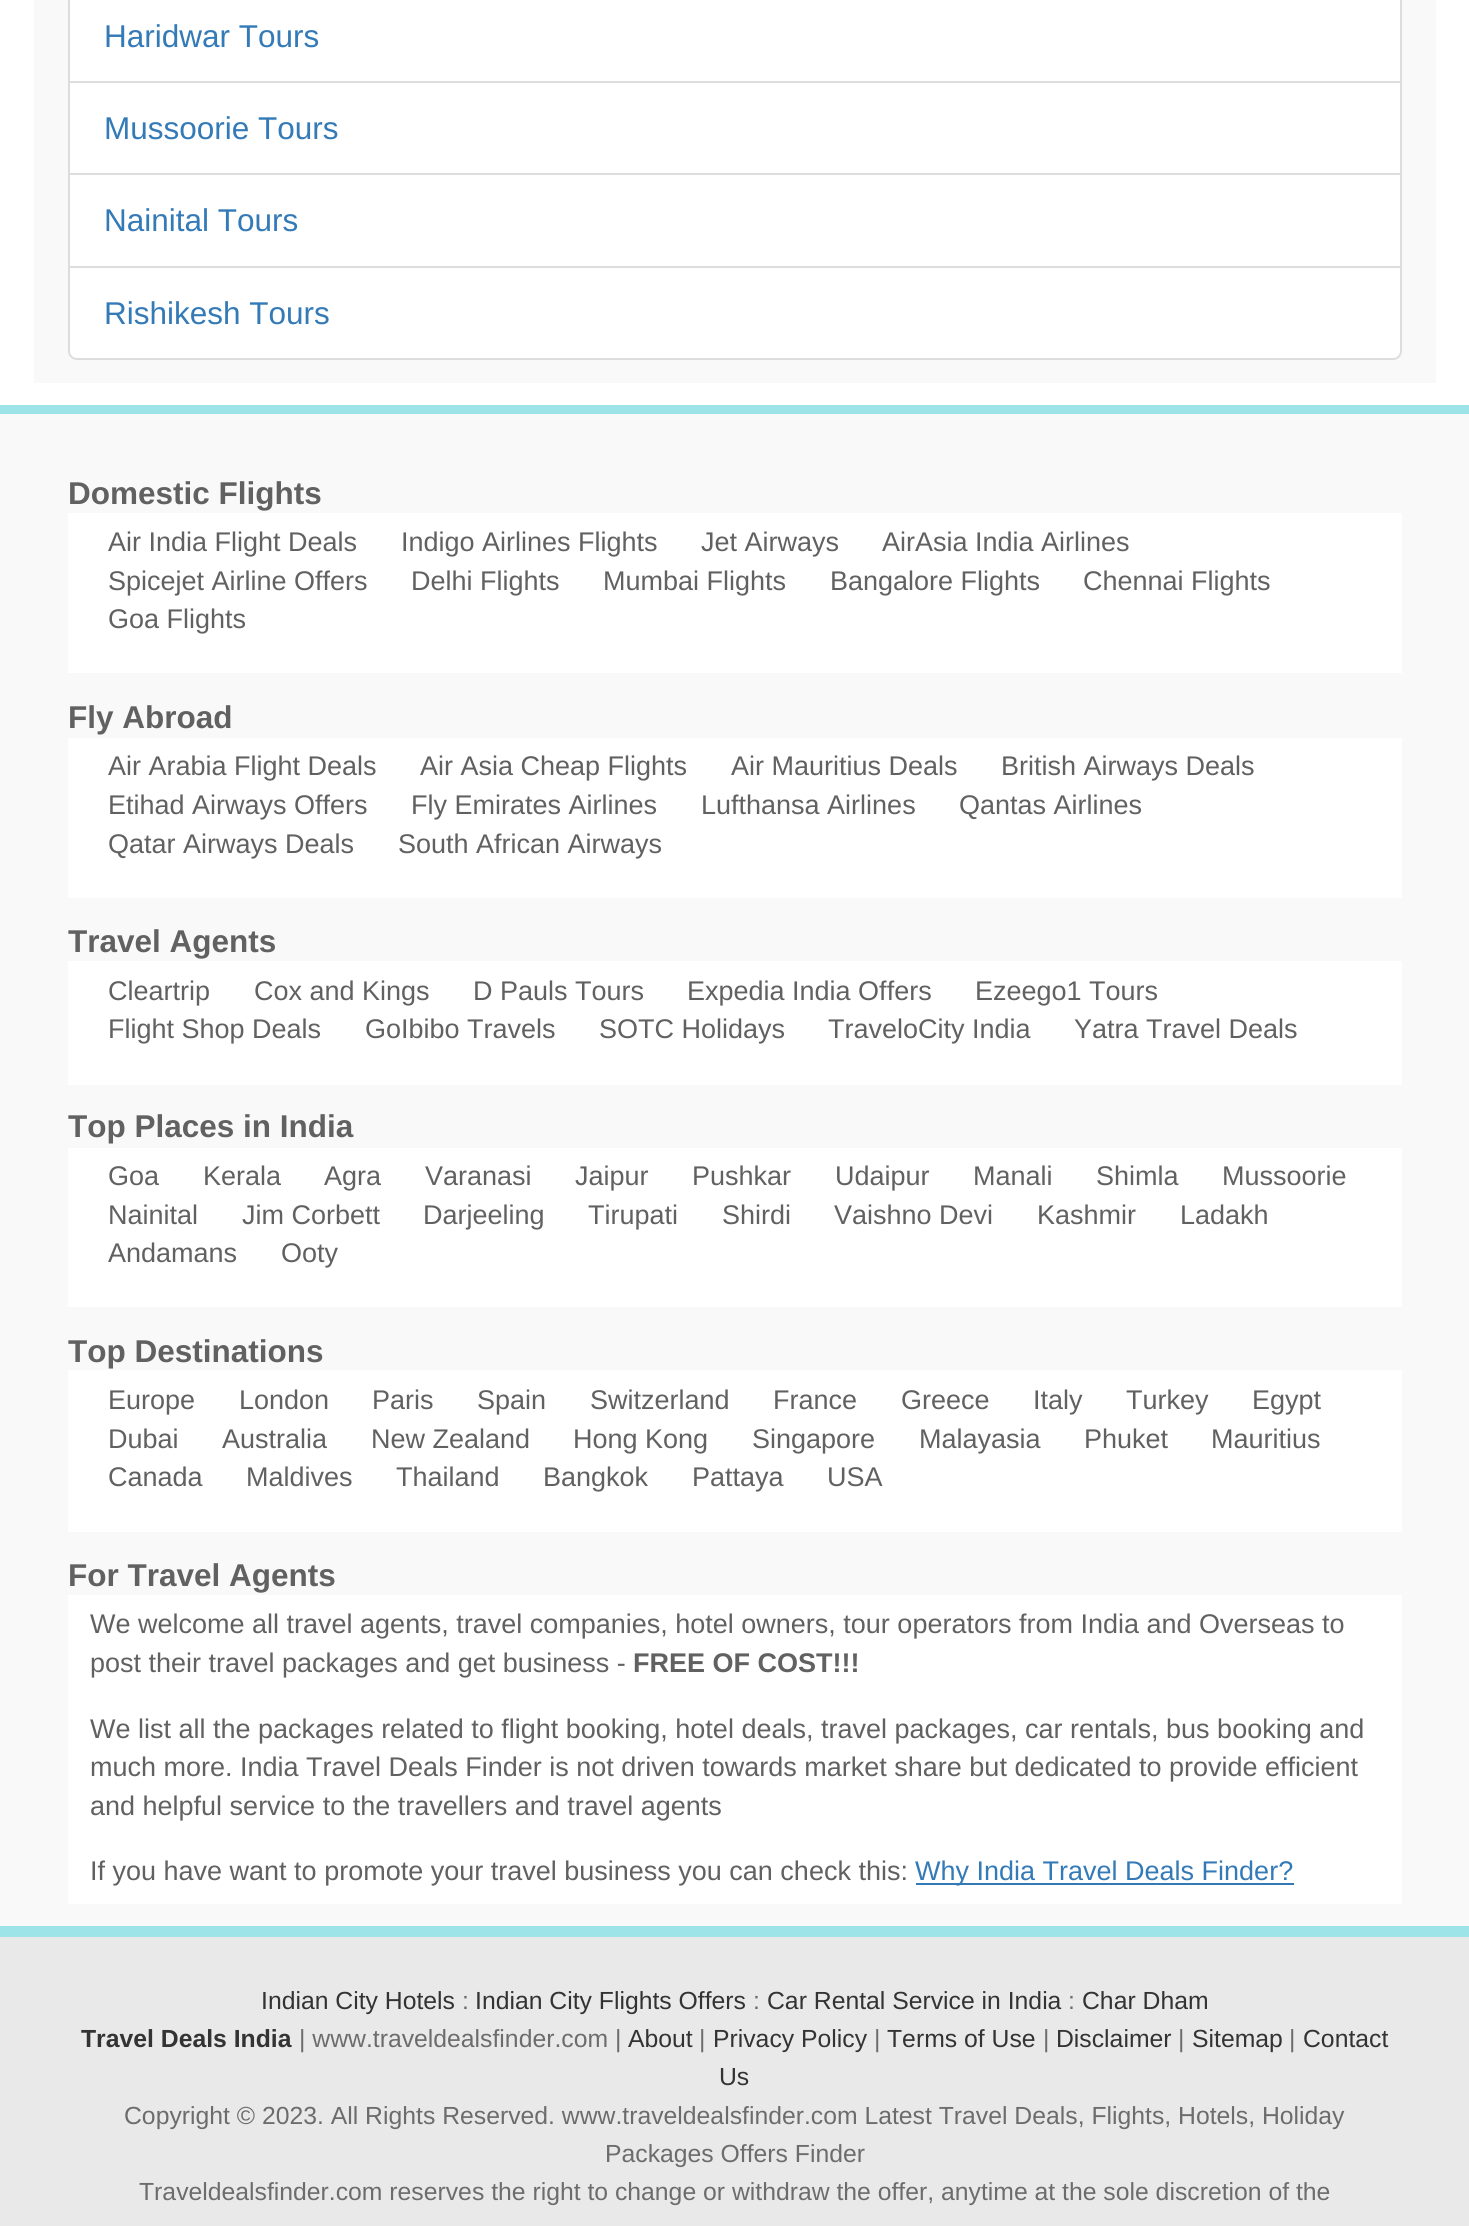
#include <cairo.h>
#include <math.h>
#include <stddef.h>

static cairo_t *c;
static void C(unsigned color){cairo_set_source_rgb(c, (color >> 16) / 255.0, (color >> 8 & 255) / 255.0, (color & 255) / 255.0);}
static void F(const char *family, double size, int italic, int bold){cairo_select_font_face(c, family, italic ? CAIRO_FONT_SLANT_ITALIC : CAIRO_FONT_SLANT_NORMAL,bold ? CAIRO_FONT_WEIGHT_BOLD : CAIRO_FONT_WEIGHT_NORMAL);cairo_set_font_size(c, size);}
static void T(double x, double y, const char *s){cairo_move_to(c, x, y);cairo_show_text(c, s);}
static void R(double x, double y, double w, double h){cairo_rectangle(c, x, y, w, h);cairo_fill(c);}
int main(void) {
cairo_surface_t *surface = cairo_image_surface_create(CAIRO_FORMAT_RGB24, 1469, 2226);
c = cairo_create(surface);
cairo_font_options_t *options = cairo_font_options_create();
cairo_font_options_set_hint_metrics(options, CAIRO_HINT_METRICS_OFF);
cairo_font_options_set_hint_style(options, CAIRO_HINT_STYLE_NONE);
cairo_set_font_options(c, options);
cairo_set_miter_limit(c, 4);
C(0xffffff);
cairo_paint(c);
C(0xf9f9f9);
R(34,0,1402,383);
C(0xffffff);
cairo_rectangle(c,69,-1,1332,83);
cairo_fill_preserve(c);
C(0xdddddd);
cairo_stroke(c);
F("Liberation Sans",31.5,0,0);
C(0x337ab7);
T(104,47,"Haridwar Tours");
C(0xffffff);
R(70,83,1330,90);
cairo_rectangle(c,69,82,1332,93);
C(0xdddddd);
cairo_stroke(c);
C(0x337ab7);
T(104,139,"Mussoorie Tours");
C(0xffffff);
cairo_rectangle(c,69,174,1332,93);
cairo_fill_preserve(c);
C(0xdddddd);
cairo_stroke(c);
C(0x337ab7);
T(104,231,"Nainital Tours");
C(0xffffff);
cairo_new_path(c);
cairo_move_to(c,69,267);
cairo_line_to(c,1401,267);
cairo_line_to(c,1401,351);
cairo_curve_to(c,1401,355.5,1397.5,359,1393,359);
cairo_line_to(c,77,359);
cairo_curve_to(c,72.5,359,69,355.5,69,351);
cairo_close_path(c);
cairo_fill_preserve(c);
C(0xdddddd);
cairo_stroke(c);
C(0x337ab7);
T(104,324,"Rishikesh Tours");
C(0xf9f9f9);
R(0,414,1469,1512);
C(0x9de4e8);
R(0,405,1469,9);
F("Liberation Sans",31.5,0,1);
C(0x616161);
T(68,504,"Domestic Flights");
C(0xffffff);
R(68,513,1334,160);
F("Liberation Sans",27,0,0);
C(0x616161);
T(108,551,"Air India Flight Deals");
T(401,551,"Indigo Airlines Flights");
T(701,551,"Jet Airways");
T(882,551,"AirAsia India Airlines");
T(108,590,"Spicejet Airline Offers");
T(411,590,"Delhi Flights");
T(603,590,"Mumbai Flights");
T(830,590,"Bangalore Flights");
T(1083,590,"Chennai Flights");
T(108,628,"Goa Flights");
F("Liberation Sans",31.5,0,1);
T(68,728,"Fly Abroad");
C(0xffffff);
R(68,738,1334,160);
F("Liberation Sans",27,0,0);
C(0x616161);
T(108,775,"Air Arabia Flight Deals");
T(420,775,"Air Asia Cheap Flights");
T(731,775,"Air Mauritius Deals");
T(1001,775,"British Airways Deals");
T(108,814,"Etihad Airways Offers");
T(411,814,"Fly Emirates Airlines");
T(701,814,"Lufthansa Airlines");
T(959,814,"Qantas Airlines");
T(108,853,"Qatar Airways Deals");
T(398,853,"South African Airways");
F("Liberation Sans",31.5,0,1);
T(68,952,"Travel Agents");
C(0xffffff);
R(68,961,1334,124);
F("Liberation Sans",27,0,0);
C(0x616161);
T(108,1000,"Cleartrip");
T(254,1000,"Cox and Kings");
T(473,1000,"D Pauls Tours");
T(687,1000,"Expedia India Offers");
T(975,1000,"Ezeego1 Tours");
T(108,1038,"Flight Shop Deals");
T(365,1038,"GoIbibo Travels");
T(599,1038,"SOTC Holidays");
T(828,1038,"TraveloCity India");
T(1074,1038,"Yatra Travel Deals");
F("Liberation Sans",31.5,0,1);
T(68,1137,"Top Places in India");
C(0xffffff);
R(68,1148,1334,159);
F("Liberation Sans",27,0,0);
C(0x616161);
T(108,1185,"Goa");
T(203,1185,"Kerala");
T(324,1185,"Agra");
T(425,1185,"Varanasi");
T(575,1185,"Jaipur");
T(692,1185,"Pushkar");
T(835,1185,"Udaipur");
T(973,1185,"Manali");
T(1096,1185,"Shimla");
T(1222,1185,"Mussoorie");
T(108,1224,"Nainital");
T(242,1224,"Jim Corbett");
T(423,1224,"Darjeeling");
T(588,1224,"Tirupati");
T(722,1224,"Shirdi");
T(834,1224,"Vaishno Devi");
T(1037,1224,"Kashmir");
T(1180,1224,"Ladakh");
T(108,1262,"Andamans");
T(281,1262,"Ooty");
F("Liberation Sans",31.5,0,1);
T(68,1362,"Top Destinations");
C(0xffffff);
R(68,1370,1334,162);
F("Liberation Sans",27,0,0);
C(0x616161);
T(108,1409,"Europe");
T(239,1409,"London");
T(372,1409,"Paris");
T(477,1409,"Spain");
T(590,1409,"Switzerland");
T(773,1409,"France");
T(901,1409,"Greece");
T(1033,1409,"Italy");
T(1126,1409,"Turkey");
T(1252,1409,"Egypt");
T(108,1448,"Dubai");
T(222,1448,"Australia");
T(371,1448,"New Zealand");
T(573,1448,"Hong Kong");
T(752,1448,"Singapore");
T(919,1448,"Malayasia");
T(1084,1448,"Phuket");
T(1211,1448,"Mauritius");
T(108,1486,"Canada");
T(246,1486,"Maldives");
T(396,1486,"Thailand");
T(543,1486,"Bangkok");
T(692,1486,"Pattaya");
T(827,1486,"USA");
F("Liberation Sans",31.5,0,1);
T(68,1586,"For Travel Agents");
C(0xffffff);
R(68,1595,1334,309);
F("Liberation Sans",27,0,0);
C(0x616161);
T(90,1633,"We welcome all travel agents, travel companies, hotel owners, tour operators from India and Overseas to");
T(90,1672,"post their travel packages and get business -");
F("Liberation Sans",27,0,1);
T(633,1672,"FREE OF COST!!!");
F("Liberation Sans",27,0,0);
T(90,1738,"We list all the packages related to flight booking, hotel deals, travel packages, car rentals, bus booking and");
T(90,1776,"much more. India Travel Deals Finder is not driven towards market share but dedicated to provide efficient");
T(90,1815,"and helpful service to the travellers and travel agents");
T(90,1880,"If you have want to promote your travel business you can check this:");
C(0x337ab7);
R(916,1883,378,2);
T(915,1880,"Why India Travel Deals Finder?");
C(0xeae9e9);
R(0,1937,1469,289);
C(0x9de4e8);
R(0,1926,1469,11);
F("Liberation Sans",24.75,0,0);
C(0x333333);
T(261,2009,"Indian City Hotels");
C(0x6d6c6c);
T(462,2009,":");
C(0x333333);
T(475,2009,"Indian City Flights Offers");
C(0x6d6c6c);
T(753,2009,":");
C(0x333333);
T(767,2009,"Car Rental Service in India");
C(0x6d6c6c);
T(1068,2009,":");
C(0x333333);
T(1082,2009,"Char Dham");
F("Liberation Sans",24.75,0,1);
T(81,2047,"Travel Deals India");
F("Liberation Sans",24.75,0,0);
C(0x6d6c6c);
T(299,2047,"| www.traveldealsfinder.com |");
C(0x333333);
T(628,2047,"About");
C(0x6d6c6c);
T(699,2047,"|");
C(0x333333);
T(713,2047,"Privacy Policy");
C(0x6d6c6c);
T(874,2047,"|");
C(0x333333);
T(887,2047,"Terms of Use");
C(0x6d6c6c);
T(1043,2047,"|");
C(0x333333);
T(1056,2047,"Disclaimer");
C(0x6d6c6c);
T(1178,2047,"|");
C(0x333333);
T(1192,2047,"Sitemap");
C(0x6d6c6c);
T(1289,2047,"|");
C(0x333333);
T(1303,2047,"Contact");
T(719,2085,"Us");
C(0x6d6c6c);
T(124,2124,"Copyright © 2023. All Rights Reserved. www.traveldealsfinder.com Latest Travel Deals, Flights, Hotels, Holiday");
T(605,2162,"Packages Offers Finder");
T(139,2200,"Traveldealsfinder.com reserves the right to change or withdraw the offer, anytime at the sole discretion of the");
cairo_surface_write_to_png(surface, "o.png");
cairo_font_options_destroy(options);
cairo_destroy(c);
cairo_surface_destroy(surface);
return 0;
}
